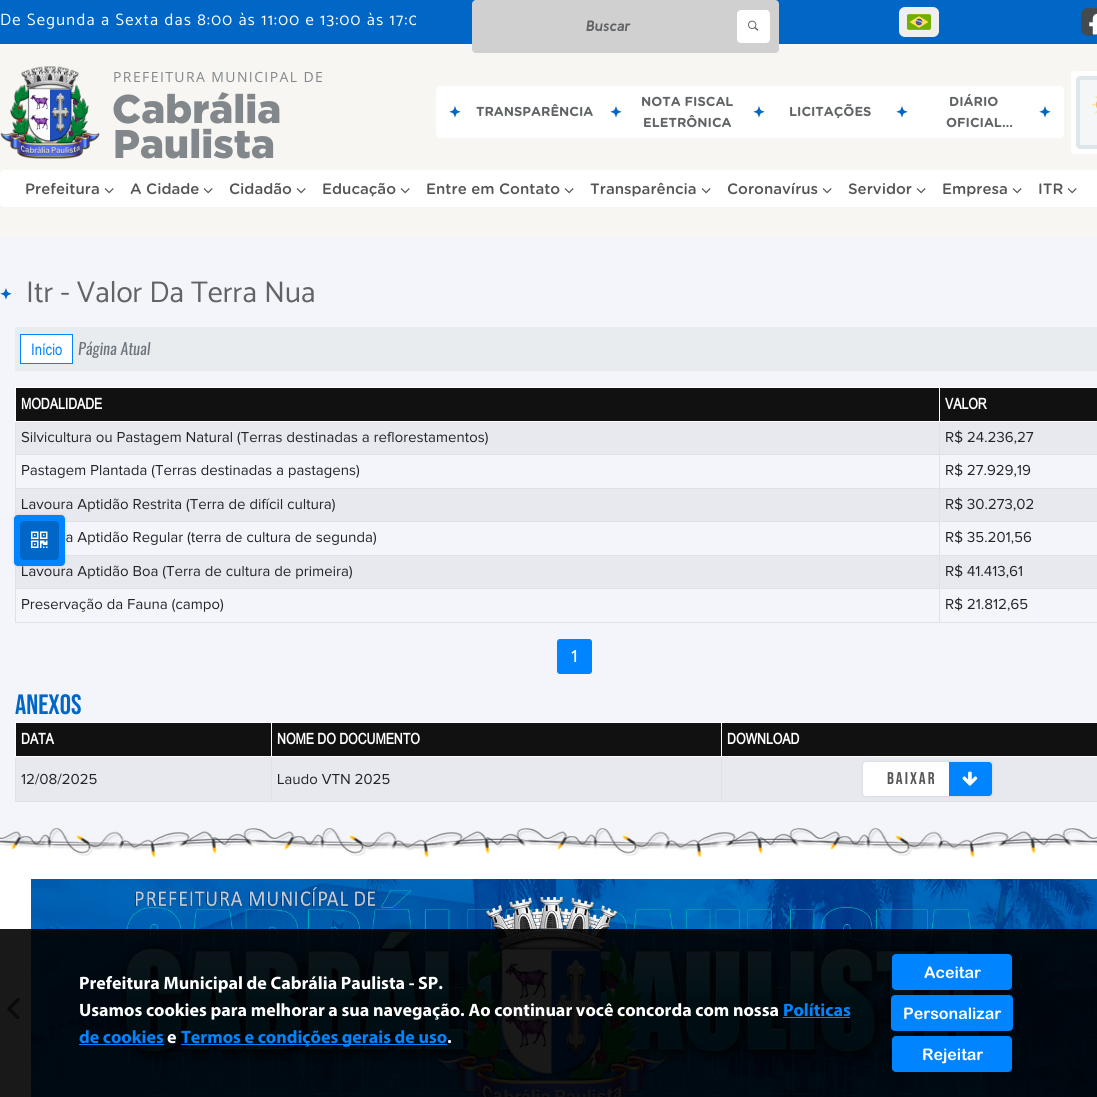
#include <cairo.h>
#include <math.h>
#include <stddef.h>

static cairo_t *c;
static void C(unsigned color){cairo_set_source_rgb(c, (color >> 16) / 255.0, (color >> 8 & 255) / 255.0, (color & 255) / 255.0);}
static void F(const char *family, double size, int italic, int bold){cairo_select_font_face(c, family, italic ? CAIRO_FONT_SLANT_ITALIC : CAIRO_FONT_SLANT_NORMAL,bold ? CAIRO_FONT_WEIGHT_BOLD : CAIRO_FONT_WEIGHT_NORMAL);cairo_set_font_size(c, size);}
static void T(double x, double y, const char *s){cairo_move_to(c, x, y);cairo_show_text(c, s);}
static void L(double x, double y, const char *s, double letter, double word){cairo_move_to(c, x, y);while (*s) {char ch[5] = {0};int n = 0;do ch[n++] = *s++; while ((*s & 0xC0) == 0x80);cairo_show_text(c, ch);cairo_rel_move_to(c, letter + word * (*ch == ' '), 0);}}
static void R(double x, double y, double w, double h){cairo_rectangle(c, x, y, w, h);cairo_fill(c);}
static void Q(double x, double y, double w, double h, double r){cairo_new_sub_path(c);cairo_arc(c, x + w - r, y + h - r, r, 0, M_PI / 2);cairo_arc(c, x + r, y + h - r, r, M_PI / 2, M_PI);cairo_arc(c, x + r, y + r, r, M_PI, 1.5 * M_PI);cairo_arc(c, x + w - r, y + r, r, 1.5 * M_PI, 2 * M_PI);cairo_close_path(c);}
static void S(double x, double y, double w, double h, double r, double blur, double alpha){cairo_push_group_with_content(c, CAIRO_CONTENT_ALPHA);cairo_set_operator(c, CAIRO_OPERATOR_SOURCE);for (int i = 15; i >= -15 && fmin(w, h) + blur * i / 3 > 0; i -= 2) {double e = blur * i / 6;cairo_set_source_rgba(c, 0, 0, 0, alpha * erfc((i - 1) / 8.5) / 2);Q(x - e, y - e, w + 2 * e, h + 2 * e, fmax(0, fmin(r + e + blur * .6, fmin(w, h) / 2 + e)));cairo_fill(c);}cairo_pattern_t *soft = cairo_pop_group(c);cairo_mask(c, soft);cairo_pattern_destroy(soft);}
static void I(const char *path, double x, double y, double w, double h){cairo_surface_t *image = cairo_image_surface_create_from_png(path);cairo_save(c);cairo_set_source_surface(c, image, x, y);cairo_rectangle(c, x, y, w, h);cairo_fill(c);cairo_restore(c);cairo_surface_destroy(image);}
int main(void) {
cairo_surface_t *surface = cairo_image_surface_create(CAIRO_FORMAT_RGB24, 1097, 1097);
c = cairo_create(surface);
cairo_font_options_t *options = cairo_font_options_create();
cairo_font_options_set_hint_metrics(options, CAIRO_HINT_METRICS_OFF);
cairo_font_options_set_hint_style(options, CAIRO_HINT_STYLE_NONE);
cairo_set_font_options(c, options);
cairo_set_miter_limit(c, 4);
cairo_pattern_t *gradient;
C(0xf7f6f2);
cairo_paint(c);
C(0x0067c7);
R(0,0,1097,44);
cairo_save(c);
cairo_rectangle(c,0,0,416,44);
cairo_clip(c);
F("Catamaran",16.5,0,0);
C(0xffffff);
L(0,25,"De Segunda a Sexta das 8:00 às 11:00 e 13:00 às 17:0",1.3,0);
cairo_restore(c);
C(0xd0d0d0);
Q(472,0,307,53,4);
cairo_fill(c);
F("Kulim Park",15,1,1);
C(0x606466);
T(586,31,"Buscar");
C(0xffffff);
Q(737,10,33,33,4);
cairo_fill(c);
I("1.png",748,20,11,11);
C(0xefefef);
Q(899,7,40,30,6);
cairo_fill(c);
I("2.png",907,14,24,16);
gradient = cairo_pattern_create_radial(1095,22,0,1095,22,20);
cairo_pattern_add_color_stop_rgba(gradient,.6,1,1,1,1);
cairo_pattern_add_color_stop_rgba(gradient,.65,0,0.404,0.78,1);
cairo_set_source(c,gradient);
cairo_pattern_destroy(gradient);
Q(1081,8,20,28,4);
cairo_fill(c);
I("3.png",1081,7,16,29);
I("4.png",0,66,100,93);
F("Open Sans",14,0,0);
C(0x81878b);
L(113,82,"PREFEITURA MUNICIPAL DE",1.4,0);
F("Gotham Black",40,0,0);
T(112,123,"Cabrália");
T(113,158,"Paulista");
C(0xffffff);
Q(436,86,628,52,4);
cairo_fill(c);
I("5.png",449,106,12,12);
F("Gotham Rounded",13,0,1);
C(0x606466);
T(476,116,"TRANSPARÊNCIA");
I("5.png",610,106,12,12);
T(641,106,"NOTA FISCAL");
T(643,127,"ELETRÔNICA");
I("5.png",753,106,12,12);
T(789,116,"LICITAÇÕES");
I("5.png",896,106,12,12);
T(949,106,"DIÁRIO");
T(946,127,"OFICIAL…");
I("5.png",1039,106,12,12);
C(0xffffff);
Q(1073.5,73.5,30,78,1.5);
cairo_fill_preserve(c);
cairo_set_line_width(c,5);
cairo_stroke(c);
C(0xf4f6f8);
Q(1078,78,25,69,2);
cairo_fill_preserve(c);
C(0xdde6eb);
cairo_set_line_width(c,4);
cairo_stroke(c);
I("6.png",1091,95,6,19);
C(0xffffff);
Q(0,170,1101,37,4);
cairo_fill(c);
F("Gotham Rounded Medium",15,0,0);
C(0x555555);
T(25,194,"Prefeitura");
I("7.png",104,188,10,6);
T(130,194,"A Cidade");
I("7.png",203,188,10,6);
T(229,194,"Cidadão");
I("7.png",296,188,10,6);
T(322,194,"Educação");
I("7.png",400,188,10,6);
T(426,194,"Entre em Contato");
I("7.png",564,188,10,6);
T(590,194,"Transparência");
I("7.png",701,188,10,6);
T(727,194,"Coronavírus");
I("7.png",822,188,10,6);
T(848,194,"Servidor");
I("7.png",916,188,10,6);
T(942,194,"Empresa");
I("7.png",1012,188,10,6);
T(1038,194,"ITR");
I("7.png",1067,188,10,6);
C(0xf4f5fa);
R(0,237,1097,606);
I("8.png",0,288,12,12);
F("Catamaran",30,0,0);
C(0x606466);
T(26,302,"Itr - Valor Da Terra Nua");
C(0xe9ecef);
R(15,327,1082,44);
C(0xffffff);
cairo_rectangle(c,20.5,334.5,52,29);
cairo_fill_preserve(c);
C(0x0084ff);
cairo_set_line_width(c,1);
cairo_stroke(c);
F("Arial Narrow",16,0,0);
T(31,355,"Início");
F("Oswald",16,1,0);
C(0x6c757d);
T(78,355,"Página Atual");
C(0xdee2e6);
R(15,622,1082,1);
R(15,422,1,201);
C(0x111111);
R(16,388,923,33);
C(0xffffff);
R(939,387,158,1);
C(0xe8e9ee);
R(16,422,1081,32);
C(0xdee2e6);
R(939,454,158,1);
R(939,488,158,1);
C(0xe8e9ee);
R(16,489,1081,32);
C(0xdee2e6);
R(939,521,158,1);
R(939,555,158,1);
C(0xe8e9ee);
R(16,556,1081,32);
C(0xdee2e6);
R(939,588,158,1);
R(939,588,1,35);
R(15,588,925,1);
R(939,555,1,34);
R(65,555,875,1);
R(939,521,1,35);
R(65,521,875,1);
R(939,488,1,34);
R(15,488,925,1);
R(939,454,1,35);
R(15,454,925,1);
R(939,421,1,34);
C(0xffffff);
R(939,421,158,1);
R(939,387,1,35);
R(15,387,925,1);
R(15,421,925,1);
R(15,387,1,35);
F("Arial Narrow",15,0,1);
T(21,409,"MODALIDADE");
C(0x111111);
R(940,388,157,33);
C(0xffffff);
T(945,409,"VALOR");
I("9.png",21,431,467,14);
I("10.png",946,430,88,14);
I("11.png",22,464,338,14);
I("12.png",946,463,85,14);
I("13.png",22,498,313,14);
I("14.png",946,497,88,14);
I("15.png",65,531,311,14);
I("16.png",946,530,86,14);
I("17.png",22,565,330,14);
I("18.png",946,564,76,14);
I("19.png",22,598,202,14);
I("20.png",946,597,82,14);
C(0x0084ff);
Q(557.5,639.5,34,34,2.5);
cairo_fill_preserve(c);
cairo_stroke(c);
F("Open Sans",16,0,1);
C(0xffffff);
T(570,662,"1");
F("Bebas Neue",28,0,0);
C(0x0067c7);
T(15,714,"ANEXOS");
C(0xdee2e6);
R(15,801,1082,1);
R(15,757,1,45);
C(0x111111);
R(16,723,255,33);
C(0xffffff);
R(721,722,376,1);
C(0xe8e9ee);
R(16,757,1081,44);
C(0xdee2e6);
R(721,756,1,46);
C(0xffffff);
R(721,756,376,1);
R(721,722,1,35);
R(271,722,451,1);
C(0xdee2e6);
R(271,756,1,46);
C(0xffffff);
R(271,756,451,1);
R(271,722,1,35);
R(15,722,257,1);
R(15,756,257,1);
R(15,722,1,35);
F("Arial Narrow",15,0,1);
T(21,744,"DATA");
C(0x111111);
R(272,723,449,33);
C(0xffffff);
T(277,744,"NOME DO DOCUMENTO");
C(0x111111);
R(722,723,375,33);
C(0xffffff);
T(727,744,"DOWNLOAD");
I("21.png",21,773,76,12);
I("22.png",278,773,112,12);
C(0xc9cee1);
S(863,762,129,34,3,1.5,1);
C(0xffffff);
Q(863,762,129,34,3);
cairo_fill(c);
F("Bebas Neue",17,0,0);
C(0x555555);
L(887,784,"Baixar",2,0);
C(0x0084ff);
cairo_new_path(c);
cairo_move_to(c,948,762);
cairo_line_to(c,989,762);
cairo_curve_to(c,990.5,762,992,763.5,992,765);
cairo_line_to(c,992,793);
cairo_curve_to(c,992,794.5,990.5,796,989,796);
cairo_line_to(c,948,796);
cairo_close_path(c);
cairo_fill(c);
C(0xffffff);
R(948,762,1,34);
I("23.png",962,771,16,15);
R(0,843,1097,254);
I("24.png",0,828,1097,30);
I("25.png",7,998,13,21);
I("26.png",31,879,1066,218);
cairo_set_source_rgba(c,0,0,0,0.9);
R(0,929,1097,168);
F("Myriad",18,0,1);
C(0xffffff);
T(79,989,"Prefeitura Municipal de Cabrália Paulista - SP.");
T(79,1016,"Usamos cookies para melhorar a sua navegação. Ao continuar você concorda com nossa");
C(0x0084ff);
T(783,1016,"Políticas");
R(783,1017,67,1);
T(79,1043,"de cookies");
R(79,1044,85,1);
C(0xffffff);
T(167,1043,"e");
C(0x0084ff);
R(181,1044,266,1);
T(181,1043,"Termos e condições gerais de uso");
C(0xffffff);
T(447,1043,".");
C(0x0084ff);
Q(892,954,120,36,4);
cairo_fill(c);
F("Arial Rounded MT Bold",16,0,1);
C(0xffffff);
T(924,978,"Aceitar");
C(0x0084ff);
Q(891,995,122,36,4);
cairo_fill(c);
C(0xffffff);
T(903,1019,"Personalizar");
C(0x0084ff);
Q(892,1036,120,36,4);
cairo_fill(c);
C(0xffffff);
T(922,1060,"Rejeitar");
C(0xcbd0d6);
S(14,515,51,51,4,1.5,1);
C(0x0084ff);
Q(14,515,51,51,4);
cairo_fill(c);
C(0x0067c7);
Q(20,521,39,39,4);
cairo_fill(c);
I("27.png",31,531,17,17);
cairo_surface_write_to_png(surface, "o.png");
cairo_font_options_destroy(options);
cairo_destroy(c);
cairo_surface_destroy(surface);
return 0;
}
